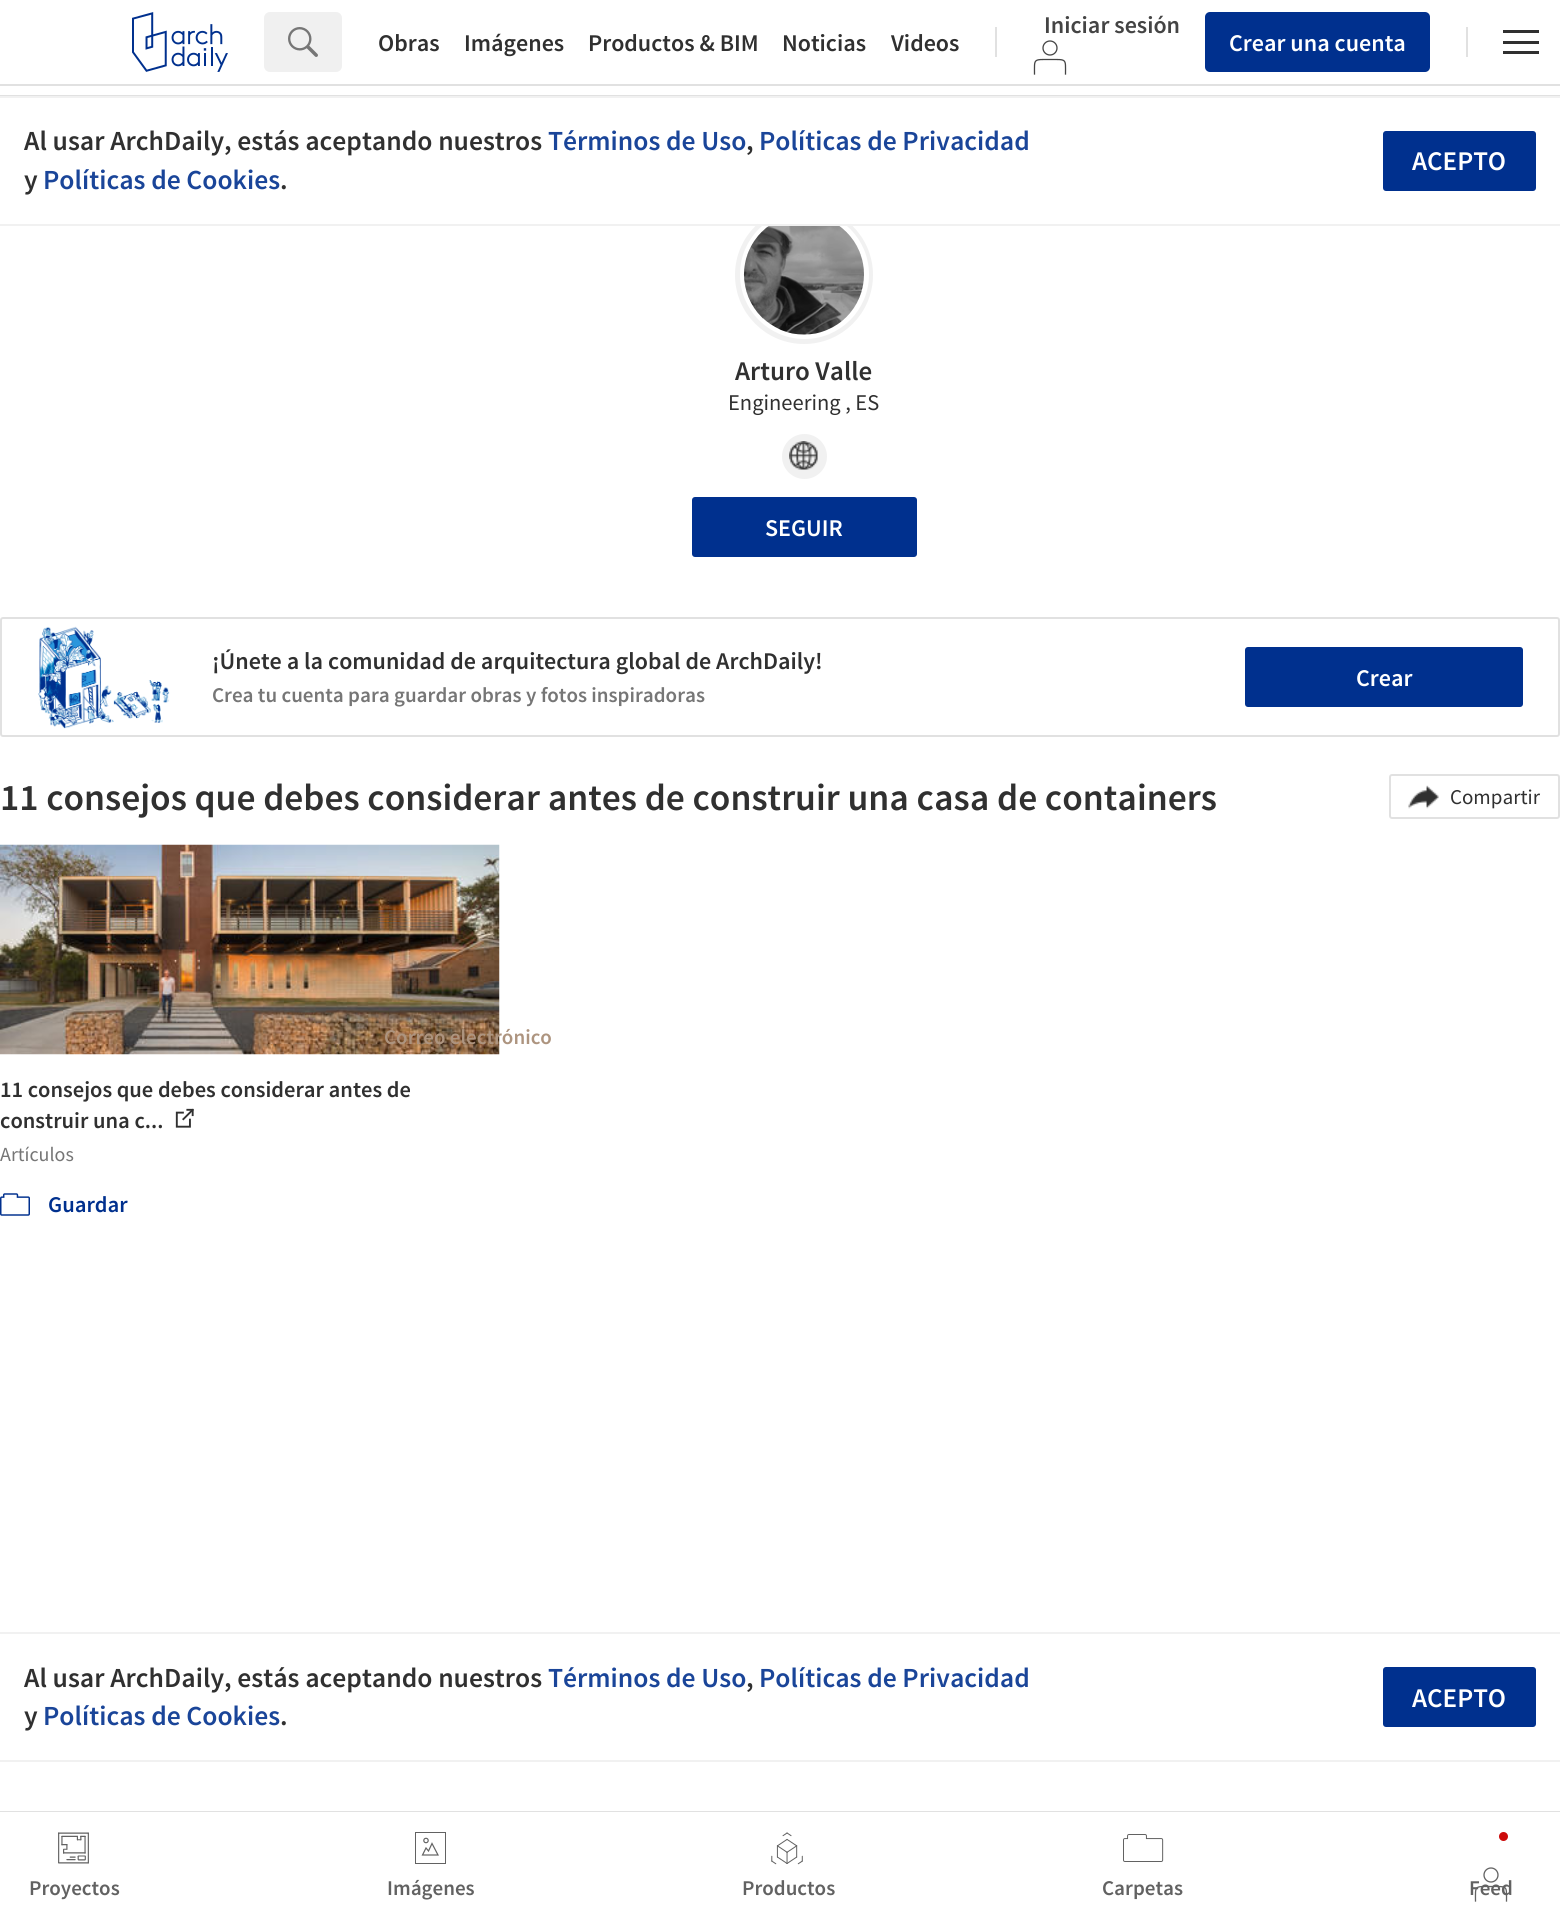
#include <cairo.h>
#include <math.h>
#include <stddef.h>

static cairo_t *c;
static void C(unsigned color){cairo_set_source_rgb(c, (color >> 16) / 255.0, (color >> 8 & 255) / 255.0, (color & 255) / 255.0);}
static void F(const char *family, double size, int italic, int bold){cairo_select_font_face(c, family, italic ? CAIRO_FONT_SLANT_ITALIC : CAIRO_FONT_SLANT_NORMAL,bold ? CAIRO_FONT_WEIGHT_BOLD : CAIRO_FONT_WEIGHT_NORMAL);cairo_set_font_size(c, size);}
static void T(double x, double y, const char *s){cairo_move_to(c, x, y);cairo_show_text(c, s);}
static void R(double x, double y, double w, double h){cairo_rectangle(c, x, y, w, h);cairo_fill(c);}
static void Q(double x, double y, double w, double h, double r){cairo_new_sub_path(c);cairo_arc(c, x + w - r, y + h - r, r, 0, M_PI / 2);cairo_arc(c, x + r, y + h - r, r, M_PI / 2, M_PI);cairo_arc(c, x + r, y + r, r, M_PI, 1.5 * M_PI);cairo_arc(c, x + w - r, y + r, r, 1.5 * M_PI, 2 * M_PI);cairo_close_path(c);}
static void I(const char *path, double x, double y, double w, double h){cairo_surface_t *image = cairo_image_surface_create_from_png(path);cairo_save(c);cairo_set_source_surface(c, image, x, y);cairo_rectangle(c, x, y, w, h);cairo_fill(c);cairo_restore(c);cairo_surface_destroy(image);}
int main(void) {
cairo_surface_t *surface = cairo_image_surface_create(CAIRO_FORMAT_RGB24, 1560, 1922);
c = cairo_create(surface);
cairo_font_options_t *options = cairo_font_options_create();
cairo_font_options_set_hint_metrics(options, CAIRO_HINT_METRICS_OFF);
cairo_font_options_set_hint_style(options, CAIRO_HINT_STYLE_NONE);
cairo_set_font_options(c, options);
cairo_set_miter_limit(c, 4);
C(0xffffff);
cairo_paint(c);
C(0xe1e1e1);
R(0,84,1560,2);
I("1.png",132,12,96,60);
C(0xf0f0f0);
Q(264,12,78,60,6);
cairo_fill(c);
I("2.png",288,27,30,30);
F("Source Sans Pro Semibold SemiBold",24,0,0);
C(0x303030);
T(378,51,"Obras");
T(464,51,"Imágenes");
T(588,51,"Productos & BIM");
T(782,51,"Noticias");
T(891,51,"Videos");
C(0xe1e1e1);
R(995,27,2,30);
C(0x444444);
T(1044,33,"Iniciar sesión");
cairo_new_path(c);
cairo_arc(c,1050,48,7,0,2 * M_PI);
cairo_set_line_width(c,1.3);
cairo_stroke(c);
cairo_new_path(c);
cairo_move_to(c,1065.5,74);
cairo_curve_to(c,1065.5,58.5,1067,59.5,1050,59.5);
cairo_curve_to(c,1033,59.5,1034.5,58.5,1034.5,74);
cairo_set_line_cap(c,CAIRO_LINE_CAP_SQUARE);
cairo_stroke(c);
C(0x00308e);
Q(1205,12,225,60,5);
cairo_fill(c);
C(0xffffff);
T(1229,51,"Crear una cuenta");
C(0xe1e1e1);
R(1466,27,2,30);
C(0x303030);
R(1503,41,36,3);
R(1503,30,36,3);
R(1503,51,36,3);
cairo_new_path(c);
cairo_arc(c,804,275,64.5,0,2 * M_PI);
C(0xf1f1f1);
cairo_set_line_width(c,9);
cairo_set_line_cap(c,CAIRO_LINE_CAP_BUTT);
cairo_stroke(c);
cairo_arc(c,804.5,274.5,62,0,2 * M_PI);
C(0xffffff);
cairo_set_line_width(c,5);
cairo_stroke(c);
R(758,206,92,18);
C(0xf1f1f1);
R(0,96,1560,2);
R(0,224,1560,2);
F("Source Sans Pro Semibold SemiBold",27.6,0,0);
C(0x303030);
T(24,150,"Al usar ArchDaily, estás aceptando nuestros");
C(0x1a4599);
T(548,150,"Términos de Uso");
C(0x303030);
T(746,150,",");
C(0x1a4599);
T(759,150,"Políticas de Privacidad");
C(0x303030);
T(24,189,"y");
C(0x1a4599);
T(43,189,"Políticas de Cookies");
C(0x303030);
T(280,189,".");
C(0x00308e);
Q(1383,131,153,60,3);
cairo_fill(c);
F("Source Sans Pro Semibold SemiBold",27,0,0);
C(0xffffff);
T(1412,170,"ACEPTO");
C(0xe1e1e1);
R(0,95,1560,1);
I("3.png",743,226,121,109);
C(0x303030);
T(735,380,"Arturo Valle");
F("Source Sans Pro",22.5,0,0);
T(728,410,"Engineering , ES");
C(0xf1f1f1);
cairo_new_path(c);
cairo_arc(c,804.5,456.5,22.5,0,2 * M_PI);
cairo_fill(c);
I("4.png",789,441,29,29);
C(0x00308e);
Q(692,497,225,60,3);
cairo_fill(c);
F("Source Sans Pro Semibold SemiBold",24,0,0);
C(0xffffff);
T(765,536,"SEGUIR");
Q(1,618,1558,118,2);
C(0xe1e1e1);
cairo_set_line_width(c,2);
cairo_stroke(c);
I("5.png",38,626,132,103);
C(0x303030);
T(212,669,"¡Únete a la comunidad de arquitectura global de ArchDaily!");
F("Source Sans Pro Semibold SemiBold",21,0,0);
C(0x767676);
T(212,702,"Crea tu cuenta para guardar obras y fotos inspiradoras");
C(0x00308e);
Q(1245,647,278,60,3);
cairo_fill(c);
F("Source Sans Pro Semibold SemiBold",24,0,0);
C(0xffffff);
T(1356,686,"Crear");
F("Source Sans Pro Semibold SemiBold",37.5,0,0);
C(0x303030);
T(0,810,"11 consejos que debes considerar antes de construir una casa de containers");
Q(1390,775,169,43,2);
C(0xe1e1e1);
cairo_stroke(c);
I("6.png",1408,785,31,24);
F("Source Sans Pro",21,0,0);
C(0x303030);
T(1450,804,"Compartir");
I("7.png",0,844,500,211);
F("Source Sans Pro Semibold SemiBold",22.5,0,0);
T(0,1097,"11 consejos que debes considerar antes de");
T(0,1128,"construir una c...");
I("8.png",175,1108,19,20);
F("Source Sans Pro",20,0,0);
C(0x767676);
T(0,1161,"Artículos");
I("9.png",0,1193,30,23);
F("Source Sans Pro Semibold SemiBold",22.5,0,0);
C(0x00308e);
T(48,1212,"Guardar");
F("Source Sans Pro Semibold SemiBold",21,0,0);
C(0xad947f);
T(384,1044,"Correo electrónico");
C(0xe1e1e1);
R(0,1811,1560,1);
C(0xf1f1f1);
R(0,1632,1560,2);
R(0,1760,1560,2);
F("Source Sans Pro Semibold SemiBold",27.6,0,0);
C(0x303030);
T(24,1687,"Al usar ArchDaily, estás aceptando nuestros");
C(0x1a4599);
T(548,1687,"Términos de Uso");
C(0x303030);
T(746,1687,",");
C(0x1a4599);
T(759,1687,"Políticas de Privacidad");
C(0x303030);
T(24,1725,"y");
C(0x1a4599);
T(43,1725,"Políticas de Cookies");
C(0x303030);
T(280,1725,".");
C(0x00308e);
Q(1383,1667,153,60,3);
cairo_fill(c);
F("Source Sans Pro Semibold SemiBold",27,0,0);
C(0xffffff);
T(1412,1707,"ACEPTO");
I("10.png",58,1832,31,32);
F("Source Sans Pro Semibold SemiBold",21,0,0);
C(0x626262);
T(29,1895,"Proyectos");
cairo_rectangle(c,415.5,1832.5,30,31);
cairo_set_line_width(c,1);
cairo_stroke(c);
cairo_new_path(c);
cairo_move_to(c,432,1843.5);
cairo_line_to(c,438,1855);
cairo_line_to(c,422.5,1855);
cairo_line_to(c,426,1848);
cairo_line_to(c,428.5,1851);
cairo_close_path(c);
cairo_set_line_width(c,1.2);
cairo_set_line_cap(c,CAIRO_LINE_CAP_ROUND);
cairo_stroke(c);
cairo_arc(c,426,1840.5,2.2,0,2 * M_PI);
cairo_set_line_cap(c,CAIRO_LINE_CAP_BUTT);
cairo_stroke(c);
T(387,1895,"Imágenes");
I("11.png",771,1832,32,33);
T(742,1895,"Productos");
I("12.png",1123,1834,41,28);
T(1102,1895,"Carpetas");
C(0xcc0a0a);
cairo_new_path(c);
cairo_arc(c,1503.5,1836.5,6,0,2 * M_PI);
cairo_fill_preserve(c);
C(0xffffff);
cairo_set_line_width(c,3);
cairo_stroke(c);
cairo_arc(c,1491,1875,7,0,2 * M_PI);
C(0x626262);
cairo_set_line_width(c,1.3);
cairo_stroke(c);
cairo_new_path(c);
cairo_move_to(c,1506.5,1901);
cairo_curve_to(c,1506.5,1885.5,1508,1886.5,1491,1886.5);
cairo_curve_to(c,1474,1886.5,1475.5,1885.5,1475.5,1901);
cairo_set_line_cap(c,CAIRO_LINE_CAP_SQUARE);
cairo_stroke(c);
T(1469,1895,"Feed");
cairo_surface_write_to_png(surface, "o.png");
cairo_font_options_destroy(options);
cairo_destroy(c);
cairo_surface_destroy(surface);
return 0;
}
